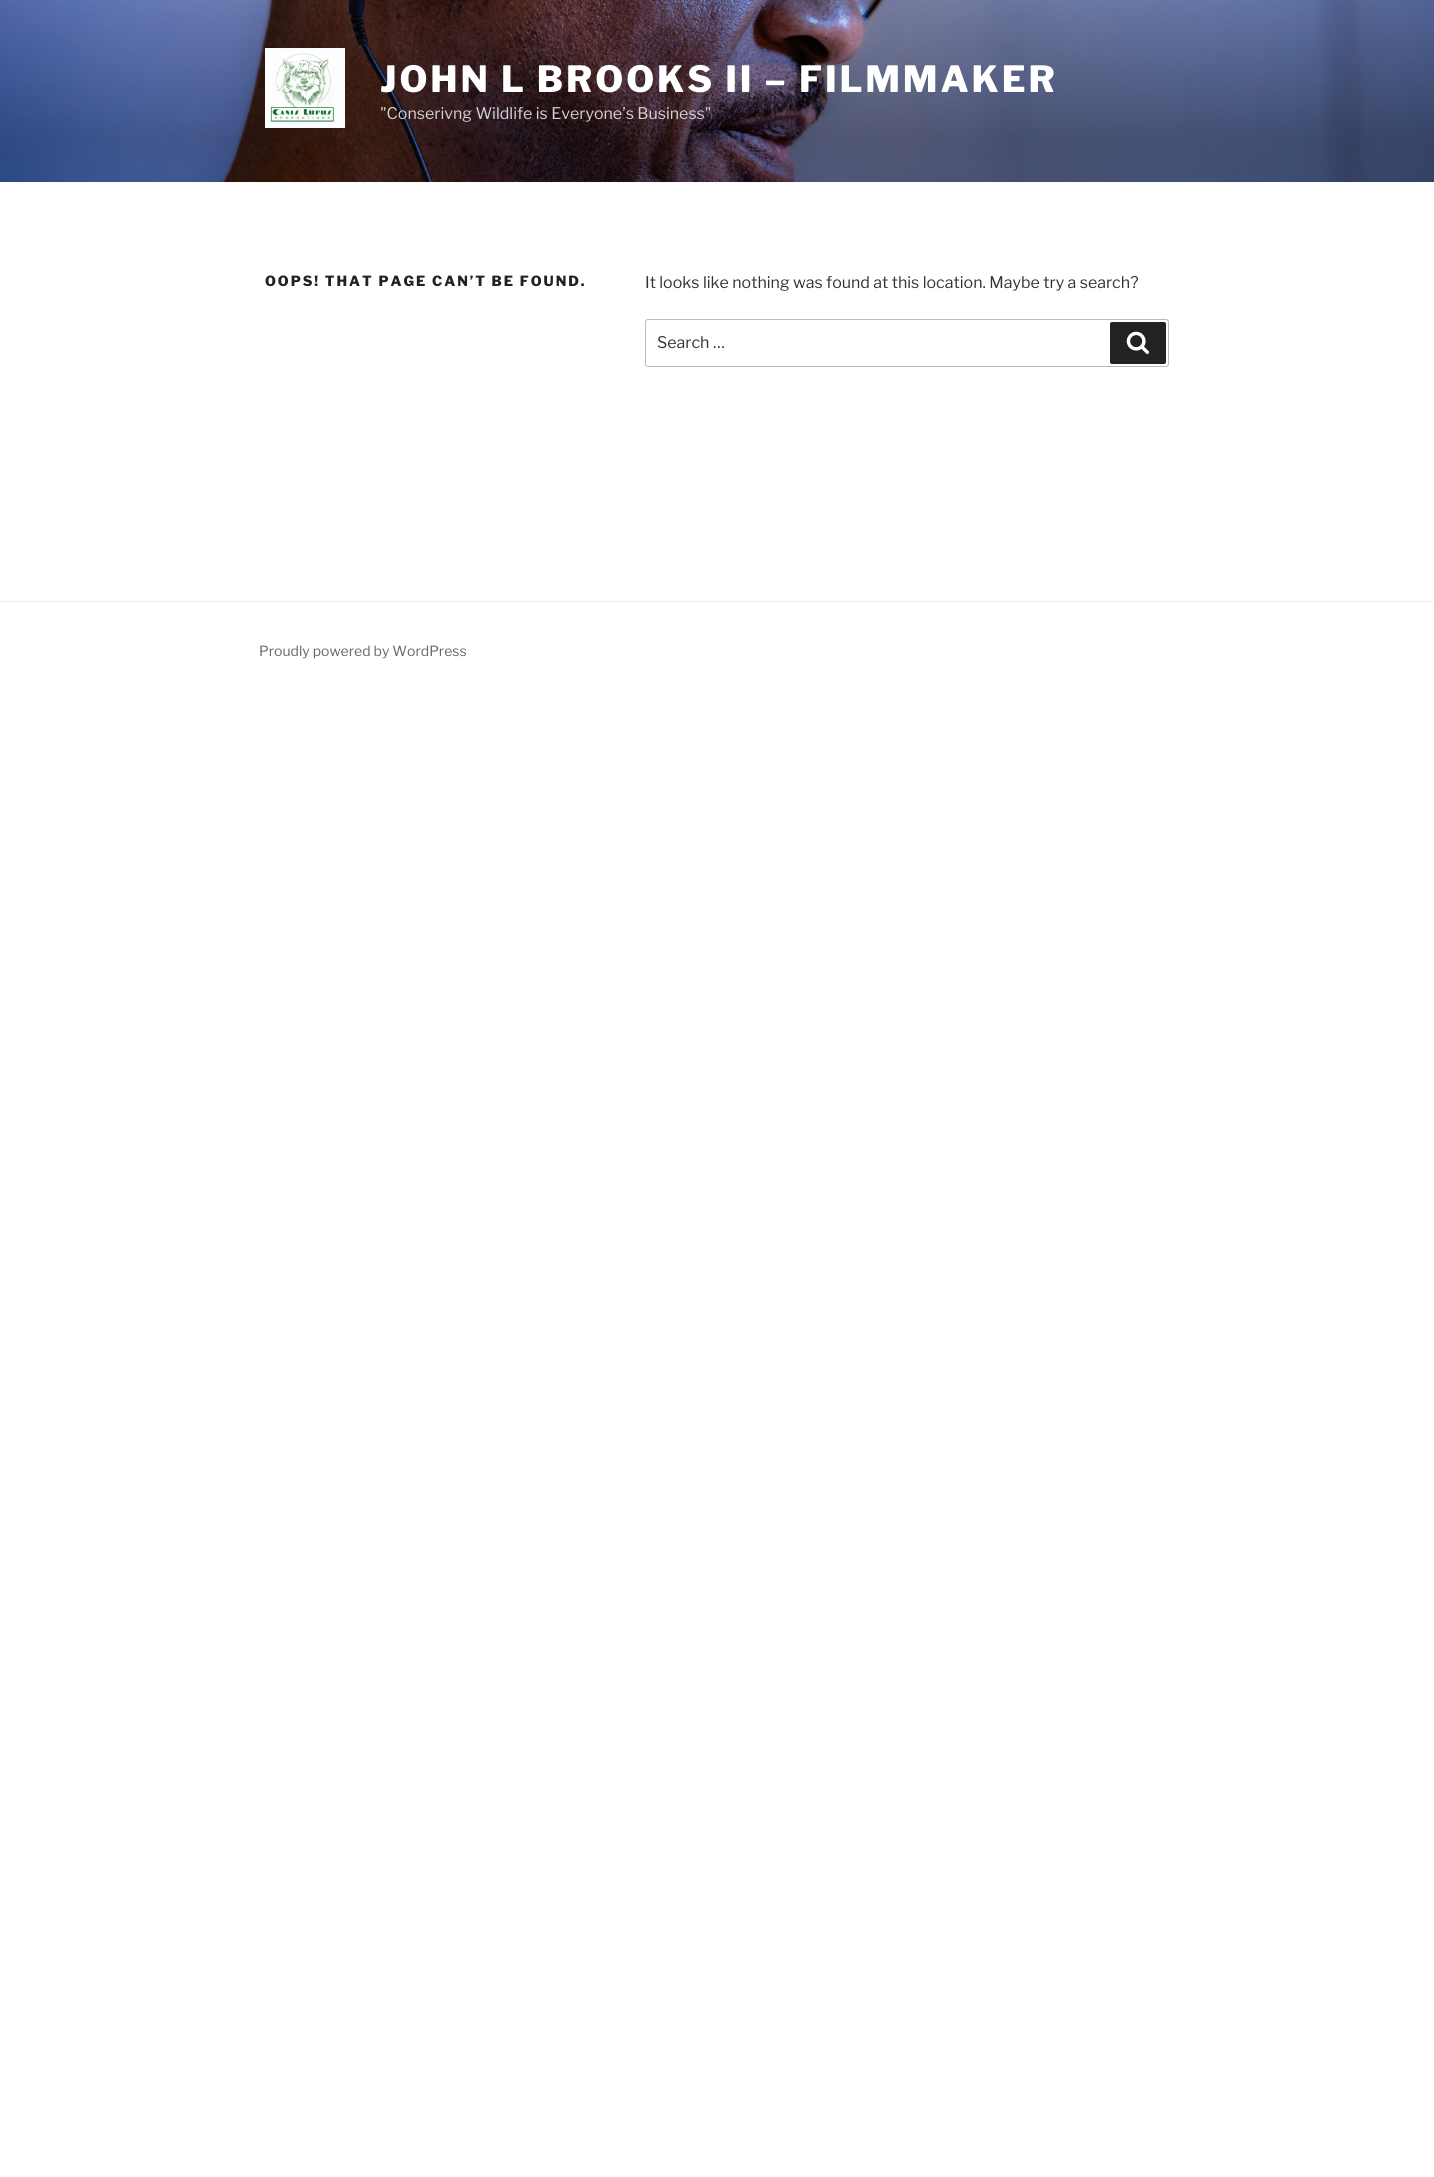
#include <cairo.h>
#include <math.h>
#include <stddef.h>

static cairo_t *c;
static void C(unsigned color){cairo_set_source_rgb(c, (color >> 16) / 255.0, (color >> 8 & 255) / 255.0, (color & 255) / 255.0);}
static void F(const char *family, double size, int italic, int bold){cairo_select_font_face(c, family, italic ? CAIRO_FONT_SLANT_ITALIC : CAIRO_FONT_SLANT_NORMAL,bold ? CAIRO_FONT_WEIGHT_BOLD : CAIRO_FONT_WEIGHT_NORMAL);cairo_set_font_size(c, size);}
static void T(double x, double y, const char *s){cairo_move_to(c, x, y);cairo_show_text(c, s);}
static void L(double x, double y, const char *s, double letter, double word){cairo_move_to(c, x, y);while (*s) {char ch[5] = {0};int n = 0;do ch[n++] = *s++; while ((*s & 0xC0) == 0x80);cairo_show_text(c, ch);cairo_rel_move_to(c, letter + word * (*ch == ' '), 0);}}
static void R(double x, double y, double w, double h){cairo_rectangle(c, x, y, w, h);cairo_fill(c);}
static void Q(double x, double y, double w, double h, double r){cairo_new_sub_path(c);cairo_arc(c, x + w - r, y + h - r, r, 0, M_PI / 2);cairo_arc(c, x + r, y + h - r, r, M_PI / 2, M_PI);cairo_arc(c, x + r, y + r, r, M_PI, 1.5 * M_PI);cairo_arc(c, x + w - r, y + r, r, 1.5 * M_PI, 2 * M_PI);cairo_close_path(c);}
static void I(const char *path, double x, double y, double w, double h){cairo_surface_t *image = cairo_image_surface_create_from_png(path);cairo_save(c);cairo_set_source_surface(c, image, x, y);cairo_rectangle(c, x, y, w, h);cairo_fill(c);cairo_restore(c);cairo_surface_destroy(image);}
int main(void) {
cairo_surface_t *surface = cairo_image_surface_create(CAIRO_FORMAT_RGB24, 1434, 2177);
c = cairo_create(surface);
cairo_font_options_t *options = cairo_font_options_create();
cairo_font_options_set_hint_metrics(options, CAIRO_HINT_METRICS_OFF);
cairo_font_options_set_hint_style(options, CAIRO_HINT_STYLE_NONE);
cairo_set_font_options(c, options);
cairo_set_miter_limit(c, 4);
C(0xffffff);
cairo_paint(c);
C(0xfafafa);
R(0,182,1434,1);
I("1.png",0,0,1434,182);
I("2.png",265,48,80,80);
F("Libre Franklin Thin",36,0,0);
C(0xffffff);
L(380,92,"JOHN L BROOKS II – FILMMAKER",2.9,0);
F("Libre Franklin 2 Thin",16,0,0);
C(0xd6d2d3);
T(380,119,"\"Conserivng Wildlife is Everyone’s Business\"");
F("Libre Franklin Thin",14,0,0);
C(0x222222);
L(265,286,"OOPS! THAT PAGE CAN’T BE FOUND.",1.95,0);
F("Libre Franklin 2 Thin",16,0,0);
C(0x333333);
T(645,288,"It looks like nothing was found at this location. Maybe try a search?");
Q(645.5,319.5,523,47,2.5);
C(0xbbbbbb);
cairo_set_line_width(c,1);
cairo_stroke(c);
C(0x333333);
T(657,348,"Search …");
C(0x222222);
Q(1110,322,56,42,2);
cairo_fill(c);
I("3.png",1126,331,23,23);
C(0xeeeeee);
R(0,601,1434,1);
F("Libre Franklin 2 Thin",14,0,0);
C(0x666666);
T(259,656,"Proudly powered by WordPress");
cairo_surface_write_to_png(surface, "o.png");
cairo_font_options_destroy(options);
cairo_destroy(c);
cairo_surface_destroy(surface);
return 0;
}
